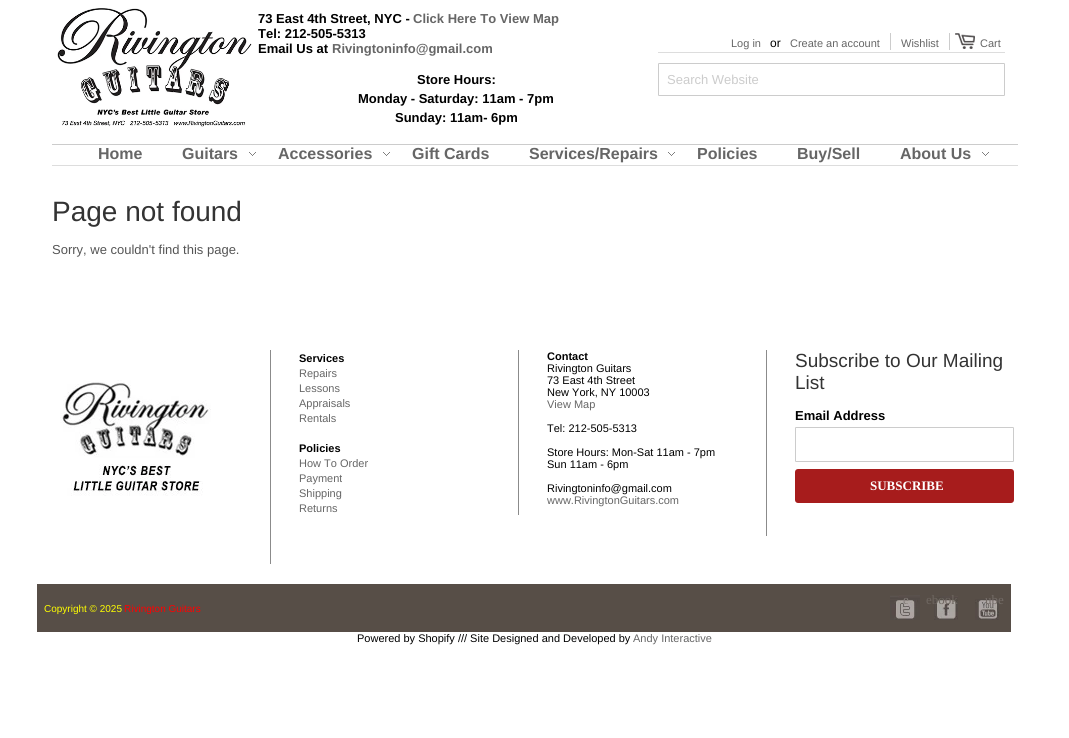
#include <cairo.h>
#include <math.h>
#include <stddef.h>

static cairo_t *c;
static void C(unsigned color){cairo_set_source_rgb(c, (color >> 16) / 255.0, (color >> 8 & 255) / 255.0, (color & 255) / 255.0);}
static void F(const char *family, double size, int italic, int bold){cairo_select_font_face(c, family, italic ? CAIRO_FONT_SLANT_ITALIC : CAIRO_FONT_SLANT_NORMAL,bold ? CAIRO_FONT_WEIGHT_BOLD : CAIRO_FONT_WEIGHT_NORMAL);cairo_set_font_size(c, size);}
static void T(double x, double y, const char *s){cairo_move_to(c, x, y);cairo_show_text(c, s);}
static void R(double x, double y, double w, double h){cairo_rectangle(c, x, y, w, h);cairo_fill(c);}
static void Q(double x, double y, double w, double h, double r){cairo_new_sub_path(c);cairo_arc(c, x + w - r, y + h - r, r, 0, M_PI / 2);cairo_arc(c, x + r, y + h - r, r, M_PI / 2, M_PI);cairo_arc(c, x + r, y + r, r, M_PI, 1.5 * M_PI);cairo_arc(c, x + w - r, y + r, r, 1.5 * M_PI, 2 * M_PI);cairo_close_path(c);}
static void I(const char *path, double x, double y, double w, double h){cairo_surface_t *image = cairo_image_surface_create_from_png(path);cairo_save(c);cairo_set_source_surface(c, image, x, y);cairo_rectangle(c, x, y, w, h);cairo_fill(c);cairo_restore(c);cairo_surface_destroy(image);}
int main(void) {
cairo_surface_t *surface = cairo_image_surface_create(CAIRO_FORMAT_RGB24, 1069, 738);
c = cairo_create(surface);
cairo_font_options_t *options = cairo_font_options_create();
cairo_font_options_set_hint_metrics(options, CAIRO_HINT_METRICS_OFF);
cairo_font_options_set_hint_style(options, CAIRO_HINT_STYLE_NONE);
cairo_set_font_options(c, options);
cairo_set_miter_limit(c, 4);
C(0xffffff);
cairo_paint(c);
C(0xdddddd);
R(52,165,966,1);
I("1.png",57,8,195,119);
F("Liberation Sans",13,0,1);
C(0x000000);
T(258,23,"73 East 4th Street, NYC -");
C(0x666666);
T(413,23,"Click Here To View Map");
C(0x000000);
T(258,38,"Tel: 212-505-5313");
T(258,53,"Email Us at");
C(0x666666);
T(332,53,"Rivingtoninfo@gmail.com");
C(0x000000);
T(417,84,"Store Hours:");
T(358,103,"Monday - Saturday: 11am - 7pm");
T(395,122,"Sunday: 11am- 6pm");
C(0xcccccc);
R(890,33,1,17);
F("Liberation Sans",11,0,0);
C(0x666666);
T(731,47,"Log in");
F("Liberation Sans",12,0,0);
C(0x000000);
T(770,47,"or");
F("Liberation Sans",11,0,0);
C(0x666666);
T(790,47,"Create an account");
C(0xcccccc);
R(949,33,1,17);
C(0x666666);
T(901,47,"Wishlist");
I("2.png",955,33,20,16);
T(980,47,"Cart");
C(0xdddddd);
R(658,52,347,1);
Q(658.5,63.5,346,32,.5);
C(0xcccccc);
cairo_set_line_width(c,1);
cairo_stroke(c);
F("Liberation Sans",13,0,0);
T(667,84,"Search Website");
R(52,144,966,1);
F("Liberation Sans",16,0,1);
C(0x666666);
T(98,159,"Home");
I("3.png",249,152,7,4);
T(182,159,"Guitars");
I("3.png",383,152,7,4);
T(278,159,"Accessories");
T(412,159,"Gift Cards");
I("3.png",668,152,7,4);
T(529,159,"Services/Repairs");
T(697,159,"Policies");
T(797,159,"Buy/Sell");
I("3.png",982,152,7,4);
T(900,159,"About Us");
F("Liberation Sans",28,0,0);
C(0x333333);
T(52,221,"Page not found");
F("Liberation Sans",13,0,0);
C(0x555555);
T(52,254,"Sorry, we couldn't find this page.");
C(0x8b8b8b);
R(270,350,1,214);
I("4.png",60,380,151,116);
R(518,350,1,165);
F("Liberation Sans",11,0,1);
C(0x000000);
T(299,362,"Services");
F("Liberation Sans",11,0,0);
C(0x666666);
T(299,377,"Repairs");
T(299,392,"Lessons");
T(299,407,"Appraisals");
T(299,422,"Rentals");
F("Liberation Sans",11,0,1);
C(0x000000);
T(299,452,"Policies");
F("Liberation Sans",11,0,0);
C(0x666666);
T(299,467,"How To Order");
T(299,482,"Payment");
T(299,497,"Shipping");
T(299,512,"Returns");
C(0x8b8b8b);
R(766,350,1,186);
F("Liberation Sans",11,0,1);
C(0x000000);
T(547,360,"Contact");
F("Liberation Sans",11,0,0);
T(547,372,"Rivington Guitars");
T(547,384,"73 East 4th Street");
T(547,396,"New York, NY 10003");
C(0x666666);
T(547,408,"View Map");
C(0x000000);
T(547,432,"Tel: 212-505-5313");
T(547,456,"Store Hours: Mon-Sat 11am - 7pm");
T(547,468,"Sun 11am - 6pm");
T(547,492,"Rivingtoninfo@gmail.com");
C(0x666666);
T(547,504,"www.RivingtonGuitars.com");
F("Liberation Sans",19,0,0);
C(0x333333);
T(795,367,"Subscribe to Our Mailing");
T(795,389,"List");
F("Liberation Sans",13,0,1);
C(0x000000);
T(795,420,"Email Address");
Q(795.5,427.5,218,34,.5);
C(0xcccccc);
cairo_stroke(c);
C(0xa71c1c);
Q(795,469,219,34,3);
cairo_fill(c);
F("Liberation Serif",13,0,1);
C(0xffffff);
T(870,490,"SUBSCRIBE");
C(0x574e47);
R(37,584,974,48);
I("5.png",890,595,30,25);
F("Liberation Serif",13,0,0);
C(0x847d79);
T(903,604,"e");
I("6.png",934,596,24,24);
C(0x6e6660);
T(926,604,"ebook");
I("7.png",975,599,24,21);
C(0x736b66);
T(985,604,"ube");
F("Liberation Sans",10,0,0);
C(0xffff00);
T(44,612,"Copyright © 2025");
C(0xff0000);
T(124,612,"Rivington Guitars");
F("Liberation Sans",11,0,0);
C(0x000000);
T(357,642,"Powered by Shopify /// Site Designed and Developed by");
C(0x666666);
T(633,642,"Andy Interactive");
cairo_surface_write_to_png(surface, "o.png");
cairo_font_options_destroy(options);
cairo_destroy(c);
cairo_surface_destroy(surface);
return 0;
}
